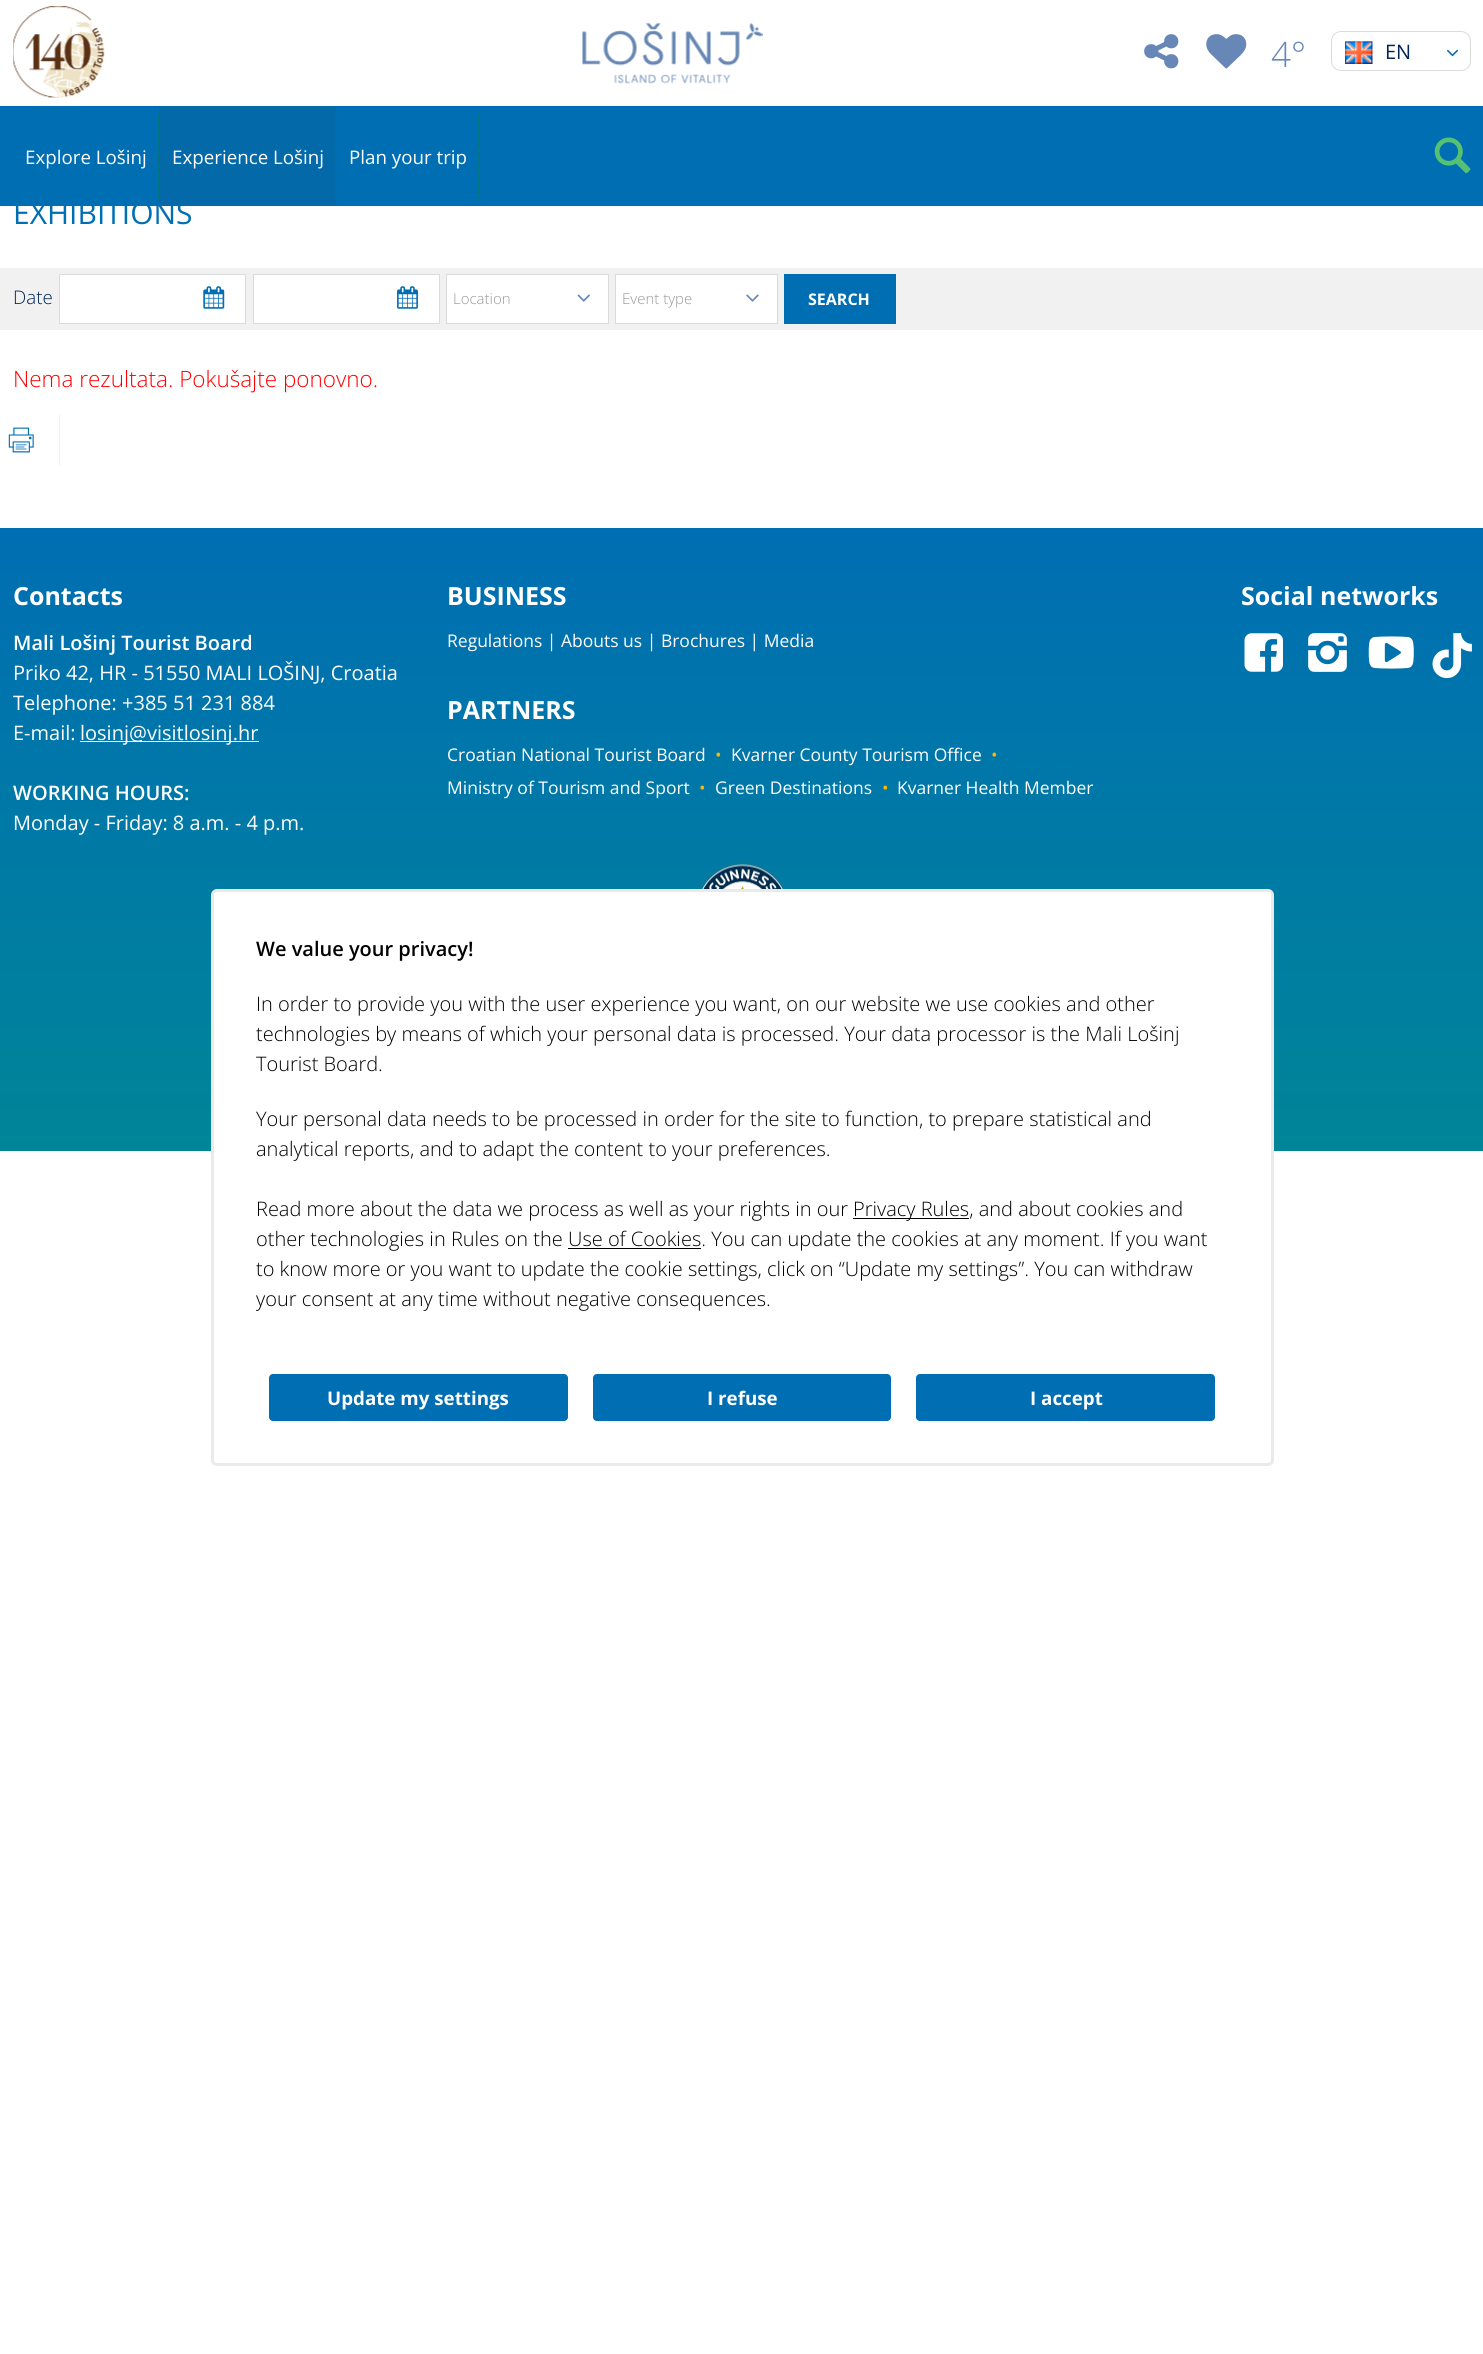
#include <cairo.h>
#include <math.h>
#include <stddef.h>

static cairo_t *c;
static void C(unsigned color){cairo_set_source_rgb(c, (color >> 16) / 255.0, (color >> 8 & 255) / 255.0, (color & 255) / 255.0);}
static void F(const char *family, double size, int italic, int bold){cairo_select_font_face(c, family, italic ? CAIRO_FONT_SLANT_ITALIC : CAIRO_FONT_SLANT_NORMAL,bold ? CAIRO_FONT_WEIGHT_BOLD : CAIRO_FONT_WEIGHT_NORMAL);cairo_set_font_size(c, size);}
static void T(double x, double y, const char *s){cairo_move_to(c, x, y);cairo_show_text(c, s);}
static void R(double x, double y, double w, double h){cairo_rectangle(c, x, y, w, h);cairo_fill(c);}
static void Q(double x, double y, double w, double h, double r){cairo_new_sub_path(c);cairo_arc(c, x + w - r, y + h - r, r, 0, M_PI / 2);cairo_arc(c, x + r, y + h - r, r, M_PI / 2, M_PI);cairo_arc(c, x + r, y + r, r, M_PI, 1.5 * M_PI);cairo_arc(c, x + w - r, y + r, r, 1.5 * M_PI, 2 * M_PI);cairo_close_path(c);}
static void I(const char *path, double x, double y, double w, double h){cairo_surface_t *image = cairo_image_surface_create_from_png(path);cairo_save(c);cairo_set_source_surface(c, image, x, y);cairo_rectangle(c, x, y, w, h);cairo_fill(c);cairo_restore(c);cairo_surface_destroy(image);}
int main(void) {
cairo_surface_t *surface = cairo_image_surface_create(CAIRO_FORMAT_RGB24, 1483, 2354);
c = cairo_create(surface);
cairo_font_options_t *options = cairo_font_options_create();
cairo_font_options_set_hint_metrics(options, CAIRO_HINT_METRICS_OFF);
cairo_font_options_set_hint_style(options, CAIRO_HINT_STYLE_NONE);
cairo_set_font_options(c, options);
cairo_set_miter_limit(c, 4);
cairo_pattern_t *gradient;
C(0xffffff);
cairo_paint(c);
I("1.png",13,6,92,92);
I("2.png",582,23,181,61);
I("3.png",1144,34,35,35);
I("4.png",1206,34,41,35);
F("Open Sans Light",35,0,0);
C(0x6787b7);
T(1271,67,"4°");
Q(1331.5,31.5,139,39,9.5);
C(0xdadbdb);
cairo_set_line_width(c,1);
cairo_stroke(c);
I("5.png",1345,41,28,23);
F("Open Sans",20,0,0);
C(0x002554);
T(1385,59,"EN");
I("6.png",1447,49,11,8);
C(0x006eb3);
R(0,106,1483,100);
F("Open Sans",18.75,0,0);
C(0xffffff);
T(25,164,"Explore Lošinj");
C(0x007586);
R(158,113,1,87);
F("Open Sans",30,0,0);
C(0x006eb3);
T(13,224,"EXHIBITIONS");
C(0x0369a8);
R(159,106,177,100);
F("Open Sans",18.75,0,0);
C(0xffffff);
T(172,164,"Experience Lošinj");
C(0x007586);
R(335,113,1,87);
C(0xffffff);
T(349,164,"Plan your trip");
C(0x007586);
R(478,113,1,87);
I("7.png",1434,137,37,37);
C(0xf1f1f1);
R(0,268,1483,62);
F("Open Sans Light",18.75,0,0);
C(0x002554);
T(13,304,"Date");
C(0xffffff);
cairo_rectangle(c,59.5,274.5,186,49);
cairo_fill_preserve(c);
C(0xdadbdb);
cairo_stroke(c);
I("8.png",203,286,22,23);
C(0xffffff);
cairo_rectangle(c,253.5,274.5,186,49);
cairo_fill_preserve(c);
C(0xdadbdb);
cairo_stroke(c);
I("9.png",397,286,21,23);
C(0xffffff);
cairo_rectangle(c,446.5,274.5,162,49);
cairo_fill_preserve(c);
C(0xdadbdb);
cairo_stroke(c);
F("Open Sans Light",15,0,0);
C(0x999999);
T(453,304,"Location");
I("10.png",577,294,13,8);
C(0xffffff);
cairo_rectangle(c,615.5,274.5,162,49);
cairo_fill_preserve(c);
C(0xdadbdb);
cairo_stroke(c);
C(0x999999);
T(622,304,"Event type");
I("11.png",746,294,13,8);
C(0x006eb3);
R(784,274,112,50);
F("Open Sans",16,0,1);
C(0xffffff);
T(808,305,"SEARCH");
F("Open Sans Light",22.5,0,0);
C(0xff0000);
T(13,387,"Nema rezultata. Pokušajte ponovno.");
C(0xeeeeee);
R(59,415,1,50);
I("12.png",8,427,26,26);
gradient = cairo_pattern_create_linear(742,527,742,1151);
cairo_pattern_add_color_stop_rgba(gradient,0,0,0.431,0.702,1);
cairo_pattern_add_color_stop_rgba(gradient,1,0,0.522,0.596,1);
cairo_set_source(c,gradient);
cairo_pattern_destroy(gradient);
R(0,528,1483,623);
F("Open Sans",25,0,1);
C(0xffffff);
T(13,605,"Contacts");
F("Open Sans SemiBold",20,0,0);
T(13,650,"Mali Lošinj Tourist Board");
F("Open Sans",20,0,0);
T(13,680,"Priko 42, HR - 51550 MALI LOŠINJ, Croatia");
T(13,710,"Telephone: +385 51 231 884");
T(13,740,"E-mail:");
R(80,741,179,1);
T(80,740,"losinj@visitlosinj.hr");
F("Open Sans SemiBold",20,0,0);
T(13,800,"WORKING HOURS:");
F("Open Sans",20,0,0);
T(13,830,"Monday - Friday: 8 a.m. - 4 p.m.");
F("Open Sans",25,0,1);
T(447,605,"BUSINESS");
F("Open Sans",17.5,0,0);
T(447,647,"Regulations | Abouts us | Brochures | Media");
F("Open Sans",25,0,1);
T(447,719,"PARTNERS");
F("Open Sans",17.5,0,0);
T(447,761,"Croatian National Tourist Board");
C(0xffb600);
T(715,761,"•");
C(0xffffff);
T(731,761,"Kvarner County Tourism Office");
C(0xffb600);
T(991,761,"•");
C(0xffffff);
T(447,794,"Ministry of Tourism and Sport");
C(0xffb600);
T(699,794,"•");
C(0xffffff);
T(715,794,"Green Destinations");
C(0xffb600);
T(882,794,"•");
C(0xffffff);
T(897,794,"Kvarner Health Member");
F("Open Sans",25,0,1);
T(1241,605,"Social networks");
I("13.png",1244,633,39,39);
I("14.png",1308,633,39,39);
I("15.png",1368,636,46,33);
I("16.png",1432,633,40,46);
I("17.png",699,862,87,27);
Q(212.5,890.5,1060,574,4.5);
cairo_fill_preserve(c);
C(0xeaeaea);
cairo_set_line_width(c,3);
cairo_stroke(c);
F("Open Sans SemiBold",20,0,0);
C(0x000000);
T(256,956,"We value your privacy!");
F("Open Sans Light",20,0,0);
T(256,1011,"In order to provide you with the user experience you want, on our website we use cookies and other");
T(256,1041,"technologies by means of which your personal data is processed. Your data processor is the Mali Lošinj");
T(256,1071,"Tourist Board.");
T(256,1126,"Your personal data needs to be processed in order for the site to function, to prepare statistical and");
T(256,1156,"analytical reports, and to adapt the content to your preferences.");
T(256,1216,"Read more about the data we process as well as your rights in our");
R(853,1218,116,1);
T(853,1216,"Privacy Rules, and about cookies and");
T(256,1246,"other technologies in Rules on the Use of Cookies. You can update the cookies at any moment. If you want");
R(568,1248,133,1);
T(256,1276,"to know more or you want to update the cookie settings, click on “Update my settings”. You can withdraw");
T(256,1306,"your consent at any time without negative consequences.");
C(0x006eb3);
Q(269,1374,299,47,4);
cairo_fill(c);
F("Open Sans",18.75,0,1);
C(0xffffff);
T(327,1405,"Update my settings");
C(0x006eb3);
Q(593,1374,298,47,4);
cairo_fill(c);
C(0xffffff);
T(707,1405,"I refuse");
C(0x006eb3);
Q(916,1374,299,47,4);
cairo_fill(c);
C(0xffffff);
T(1030,1405,"I accept");
cairo_surface_write_to_png(surface, "o.png");
cairo_font_options_destroy(options);
cairo_destroy(c);
cairo_surface_destroy(surface);
return 0;
}
